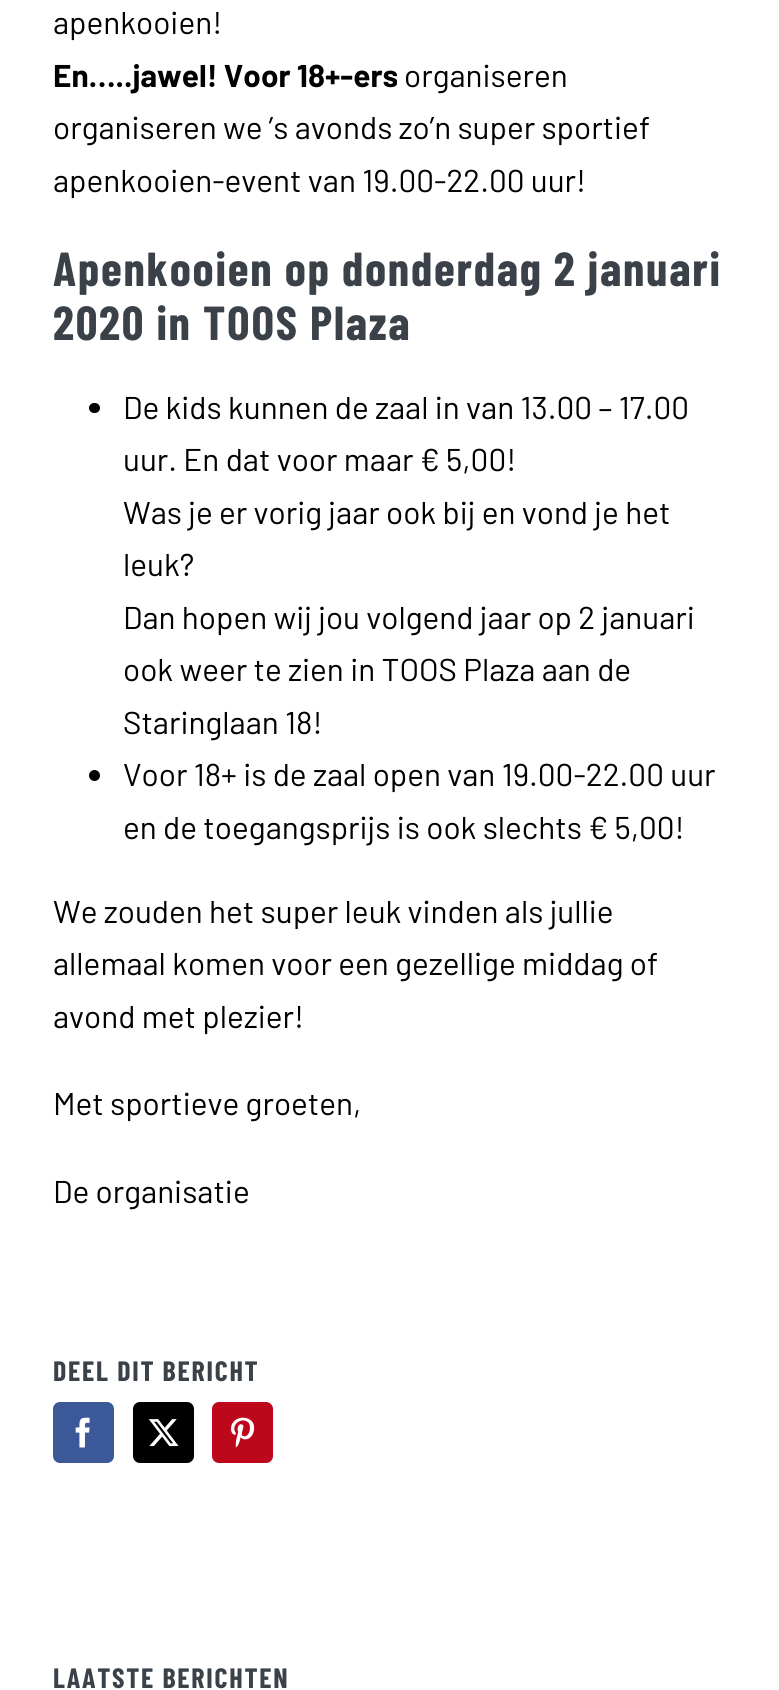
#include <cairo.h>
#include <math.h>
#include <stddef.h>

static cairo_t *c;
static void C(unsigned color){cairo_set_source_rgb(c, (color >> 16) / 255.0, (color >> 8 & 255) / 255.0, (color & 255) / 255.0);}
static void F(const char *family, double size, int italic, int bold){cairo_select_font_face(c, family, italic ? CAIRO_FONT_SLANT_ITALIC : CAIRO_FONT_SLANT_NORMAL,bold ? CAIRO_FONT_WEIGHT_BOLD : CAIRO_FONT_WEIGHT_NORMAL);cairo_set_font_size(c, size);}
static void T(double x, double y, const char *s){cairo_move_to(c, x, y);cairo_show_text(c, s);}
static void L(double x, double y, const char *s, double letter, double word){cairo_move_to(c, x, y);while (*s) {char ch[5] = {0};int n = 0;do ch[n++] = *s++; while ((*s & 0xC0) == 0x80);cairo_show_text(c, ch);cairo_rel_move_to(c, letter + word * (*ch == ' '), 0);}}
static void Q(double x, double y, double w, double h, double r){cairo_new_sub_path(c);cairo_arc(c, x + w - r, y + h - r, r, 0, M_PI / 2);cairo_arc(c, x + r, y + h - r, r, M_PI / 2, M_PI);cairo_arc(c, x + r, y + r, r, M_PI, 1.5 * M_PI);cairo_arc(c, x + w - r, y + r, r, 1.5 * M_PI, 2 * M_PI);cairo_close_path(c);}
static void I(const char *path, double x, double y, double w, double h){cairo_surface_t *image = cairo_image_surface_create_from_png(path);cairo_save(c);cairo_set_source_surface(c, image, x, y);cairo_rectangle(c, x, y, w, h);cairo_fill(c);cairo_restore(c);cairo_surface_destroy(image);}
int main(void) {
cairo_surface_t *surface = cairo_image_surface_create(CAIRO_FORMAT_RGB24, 779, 1690);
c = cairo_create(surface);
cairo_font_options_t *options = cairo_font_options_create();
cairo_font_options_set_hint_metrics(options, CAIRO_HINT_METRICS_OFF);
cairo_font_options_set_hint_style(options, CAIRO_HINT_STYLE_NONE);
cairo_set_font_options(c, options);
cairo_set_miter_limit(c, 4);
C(0xffffff);
cairo_paint(c);
F("Barlow",31.5,0,0);
C(0x000000);
T(53,34,"apenkooien!");
F("Barlow",31.5,0,1);
T(53,87,"En…..jawel! Voor 18+-ers");
F("Barlow",31.5,0,0);
T(404,87,"organiseren");
T(53,139,"organiseren we ’s avonds zo’n super sportief");
T(53,192,"apenkooien-event van 19.00-22.00 uur!");
F("Barlow Condensed",47.75,0,1);
C(0x3a4149);
L(53,286,"Apenkooien op donderdag 2 januari",1.75,0);
L(53,340,"2020 in TOOS Plaza",1.75,0);
C(0x000000);
Q(89,403,11,10,5);
cairo_fill(c);
F("Barlow",31.5,0,0);
T(123,419,"De kids kunnen de zaal in van 13.00 – 17.00");
T(123,471,"uur. En dat voor maar € 5,00!");
T(123,524,"Was je er vorig jaar ook bij en vond je het");
T(123,576,"leuk?");
T(123,629,"Dan hopen wij jou volgend jaar op 2 januari");
T(123,681,"ook weer te zien in TOOS Plaza aan de");
T(123,734,"Staringlaan 18!");
cairo_new_path(c);
cairo_arc(c,94.5,775.5,5.5,0,2 * M_PI);
cairo_fill(c);
T(123,786,"Voor 18+ is de zaal open van 19.00-22.00 uur");
T(123,839,"en de toegangsprijs is ook slechts € 5,00!");
T(53,923,"We zouden het super leuk vinden als jullie");
T(53,975,"allemaal komen voor een gezellige middag of");
T(53,1028,"avond met plezier!");
T(53,1115,"Met sportieve groeten,");
T(53,1203,"De organisatie");
F("Barlow Condensed",28,0,1);
C(0x3a4149);
L(53,1381,"DEEL DIT BERICHT",1.75,0);
C(0x3b5998);
Q(54,1403,59,59,6);
cairo_fill_preserve(c);
cairo_stroke(c);
I("1.png",75,1417,15,31);
C(0x000000);
Q(134,1403,59,59,6);
cairo_fill_preserve(c);
cairo_stroke(c);
I("2.png",148,1419,31,28);
C(0xbd081c);
Q(213,1403,59,59,6);
cairo_fill_preserve(c);
cairo_stroke(c);
I("3.png",231,1417,24,31);
C(0x3a4149);
L(53,1688,"LAATSTE BERICHTEN",1.75,0);
cairo_surface_write_to_png(surface, "o.png");
cairo_font_options_destroy(options);
cairo_destroy(c);
cairo_surface_destroy(surface);
return 0;
}
